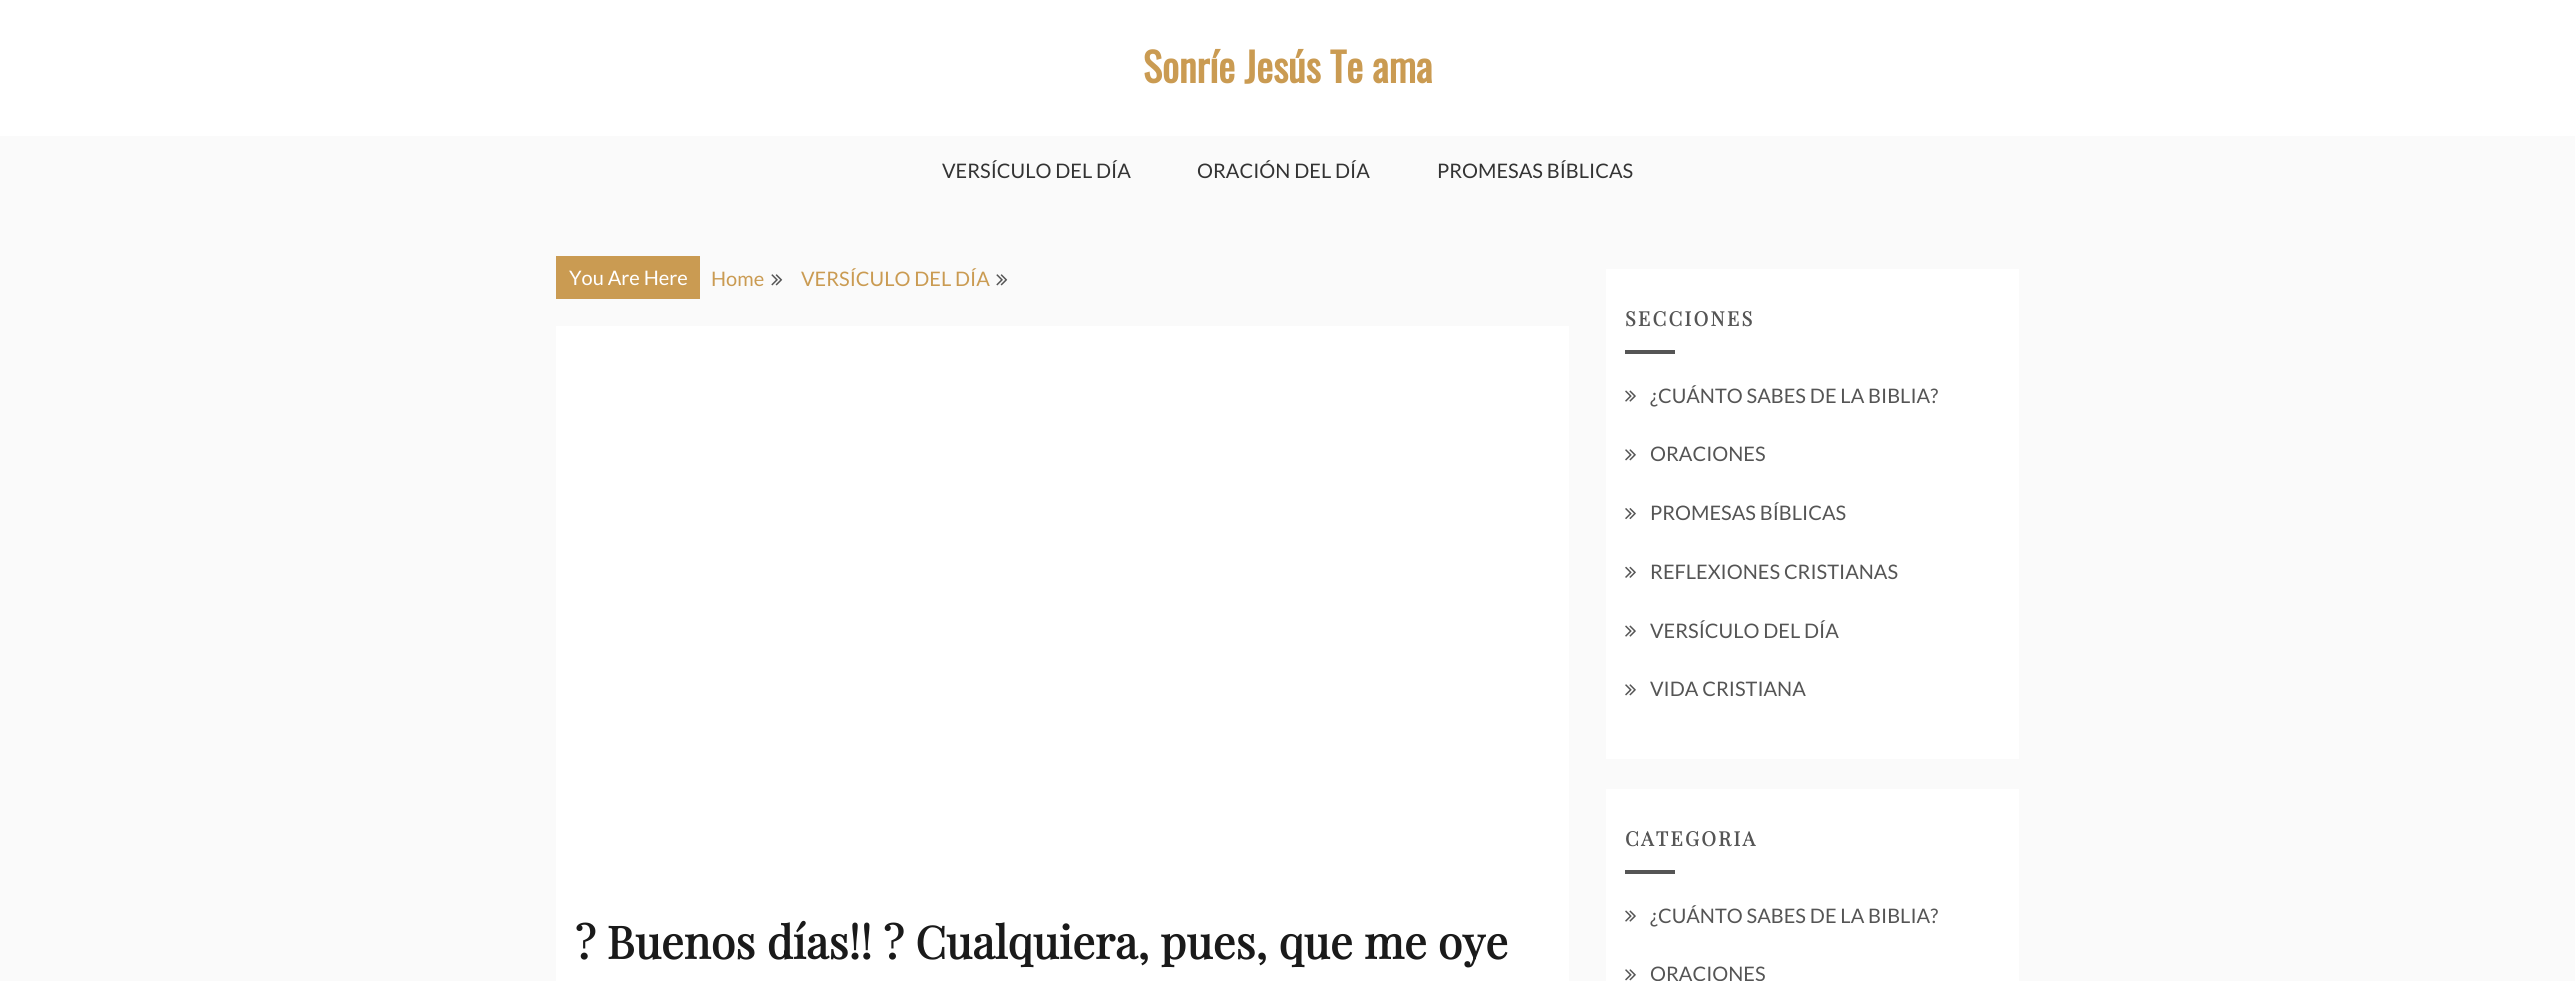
#include <cairo.h>
#include <math.h>
#include <stddef.h>

static cairo_t *c;
static void C(unsigned color){cairo_set_source_rgb(c, (color >> 16) / 255.0, (color >> 8 & 255) / 255.0, (color & 255) / 255.0);}
static void F(const char *family, double size, int italic, int bold){cairo_select_font_face(c, family, italic ? CAIRO_FONT_SLANT_ITALIC : CAIRO_FONT_SLANT_NORMAL,bold ? CAIRO_FONT_WEIGHT_BOLD : CAIRO_FONT_WEIGHT_NORMAL);cairo_set_font_size(c, size);}
static void T(double x, double y, const char *s){cairo_move_to(c, x, y);cairo_show_text(c, s);}
static void L(double x, double y, const char *s, double letter, double word){cairo_move_to(c, x, y);while (*s) {char ch[5] = {0};int n = 0;do ch[n++] = *s++; while ((*s & 0xC0) == 0x80);cairo_show_text(c, ch);cairo_rel_move_to(c, letter + word * (*ch == ' '), 0);}}
static void R(double x, double y, double w, double h){cairo_rectangle(c, x, y, w, h);cairo_fill(c);}
static void I(const char *path, double x, double y, double w, double h){cairo_surface_t *image = cairo_image_surface_create_from_png(path);cairo_save(c);cairo_set_source_surface(c, image, x, y);cairo_rectangle(c, x, y, w, h);cairo_fill(c);cairo_restore(c);cairo_surface_destroy(image);}
int main(void) {
cairo_surface_t *surface = cairo_image_surface_create(CAIRO_FORMAT_RGB24, 2575, 981);
c = cairo_create(surface);
cairo_font_options_t *options = cairo_font_options_create();
cairo_font_options_set_hint_metrics(options, CAIRO_HINT_METRICS_OFF);
cairo_font_options_set_hint_style(options, CAIRO_HINT_STYLE_NONE);
cairo_set_font_options(c, options);
cairo_set_miter_limit(c, 4);
C(0xfafafa);
cairo_paint(c);
C(0xffffff);
R(0,0,2575,136);
F("Oswald",40,0,1);
C(0xca9b52);
T(1143,83,"Sonríe Jesús Te ama");
F("Lato",20,0,0);
C(0x333333);
T(942,178,"VERSÍCULO DEL DÍA");
T(1197,178,"ORACIÓN DEL DÍA");
T(1437,178,"PROMESAS BÍBLICAS");
C(0xca9b52);
R(556,256,144,43);
C(0xffffff);
T(569,285,"You Are Here");
C(0xca9b52);
T(711,286,"Home");
I("1.png",771,274,12,12);
T(801,286,"VERSÍCULO DEL DÍA");
I("1.png",996,274,12,12);
C(0xffffff);
R(556,326,1013,655);
F("Playfair Display",45,0,1);
C(0x1a1a1a);
T(575,959,"? Buenos días!! ? Cualquiera, pues, que me oye");
C(0xffffff);
R(1606,269,413,490);
F("Playfair Display",20,0,1);
C(0x555555);
L(1625,326,"SECCIONES",2.25,0);
R(1625,350,50,4);
I("2.png",1625,390,11,12);
F("Lato",20,0,0);
T(1650,403,"¿CUÁNTO SABES DE LA BIBLIA?");
I("3.png",1625,449,11,12);
T(1650,461,"ORACIONES");
I("4.png",1625,508,11,12);
T(1650,520,"PROMESAS BÍBLICAS");
I("5.png",1625,566,11,12);
T(1650,579,"REFLEXIONES CRISTIANAS");
I("2.png",1625,625,11,12);
T(1650,638,"VERSÍCULO DEL DÍA");
I("3.png",1625,684,11,12);
T(1650,696,"VIDA CRISTIANA");
C(0xffffff);
R(1606,789,413,192);
F("Playfair Display",20,0,1);
C(0x555555);
L(1625,846,"CATEGORIA",2.25,0);
R(1625,870,50,4);
I("2.png",1625,910,11,12);
F("Lato",20,0,0);
T(1650,923,"¿CUÁNTO SABES DE LA BIBLIA?");
I("3.png",1625,969,11,12);
T(1650,981,"ORACIONES");
cairo_surface_write_to_png(surface, "o.png");
cairo_font_options_destroy(options);
cairo_destroy(c);
cairo_surface_destroy(surface);
return 0;
}
